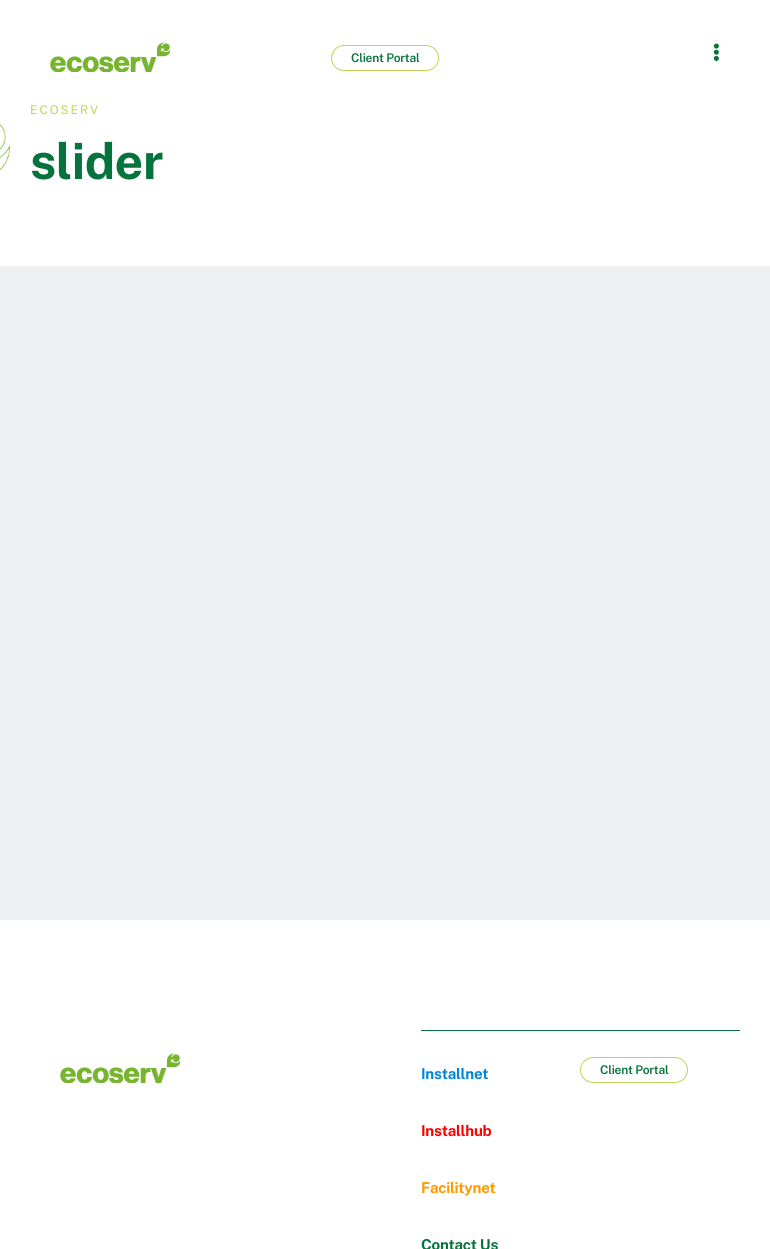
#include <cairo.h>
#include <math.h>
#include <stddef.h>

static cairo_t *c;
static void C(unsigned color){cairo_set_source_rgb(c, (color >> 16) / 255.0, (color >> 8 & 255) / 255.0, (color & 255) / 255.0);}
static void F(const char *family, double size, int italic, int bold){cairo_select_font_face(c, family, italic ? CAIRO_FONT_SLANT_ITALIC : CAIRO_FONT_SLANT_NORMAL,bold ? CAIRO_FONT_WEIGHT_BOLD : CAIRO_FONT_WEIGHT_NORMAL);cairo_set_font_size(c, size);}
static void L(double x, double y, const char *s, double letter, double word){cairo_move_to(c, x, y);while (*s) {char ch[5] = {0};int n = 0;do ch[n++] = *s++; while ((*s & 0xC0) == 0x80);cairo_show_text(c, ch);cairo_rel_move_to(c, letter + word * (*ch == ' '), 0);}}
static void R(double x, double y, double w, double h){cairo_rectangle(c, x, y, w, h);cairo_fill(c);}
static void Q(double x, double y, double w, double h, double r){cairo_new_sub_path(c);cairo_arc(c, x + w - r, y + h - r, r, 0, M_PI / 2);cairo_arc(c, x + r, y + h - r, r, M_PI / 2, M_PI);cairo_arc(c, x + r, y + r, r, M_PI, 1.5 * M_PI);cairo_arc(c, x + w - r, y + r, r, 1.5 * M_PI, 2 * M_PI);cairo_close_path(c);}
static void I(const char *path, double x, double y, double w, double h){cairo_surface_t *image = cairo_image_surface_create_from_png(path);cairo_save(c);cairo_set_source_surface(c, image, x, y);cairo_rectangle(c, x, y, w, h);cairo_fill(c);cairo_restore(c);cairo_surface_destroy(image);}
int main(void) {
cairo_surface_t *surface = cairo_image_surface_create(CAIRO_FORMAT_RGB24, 770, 1249);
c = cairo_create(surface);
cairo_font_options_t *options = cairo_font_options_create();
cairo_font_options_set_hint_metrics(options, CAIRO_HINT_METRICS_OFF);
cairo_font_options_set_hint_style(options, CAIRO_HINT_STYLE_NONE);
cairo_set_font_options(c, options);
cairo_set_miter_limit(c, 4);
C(0xffffff);
cairo_paint(c);
I("1.png",50,42,120,30);
Q(331.5,45.5,107,25,12.5);
C(0xbdd753);
cairo_set_line_width(c,1);
cairo_stroke(c);
F("Public Sans SemiBold",12,0,0);
C(0x07733c);
L(351,62,"Client Portal",-.25,0);
I("2.png",713,43,6,18);
I("3.png",0,124,10,47);
F("Public Sans",12,0,0);
C(0xbdd753);
L(30,114,"ECOSERV",2,0);
F("Public Sans",50,0,1);
C(0x07733c);
L(30,179,"slider",-.5,0);
C(0xeef0f1);
R(0,266,770,654);
I("1.png",60,1053,120,30);
C(0x07733c);
R(421,1030,319,1);
F("Public Sans",15,0,1);
C(0x0087dc);
L(421,1079,"Installnet",-.25,0);
C(0xff0000);
L(421,1136,"Installhub",-.25,0);
C(0xff9900);
L(421,1193,"Facilitynet",-.25,0);
C(0x07733c);
L(421,1250,"Contact Us",-.25,0);
Q(580.5,1057.5,107,25,12.5);
C(0xbdd753);
cairo_stroke(c);
F("Public Sans SemiBold",12,0,0);
C(0x07733c);
L(600,1074,"Client Portal",-.25,0);
cairo_surface_write_to_png(surface, "o.png");
cairo_font_options_destroy(options);
cairo_destroy(c);
cairo_surface_destroy(surface);
return 0;
}
